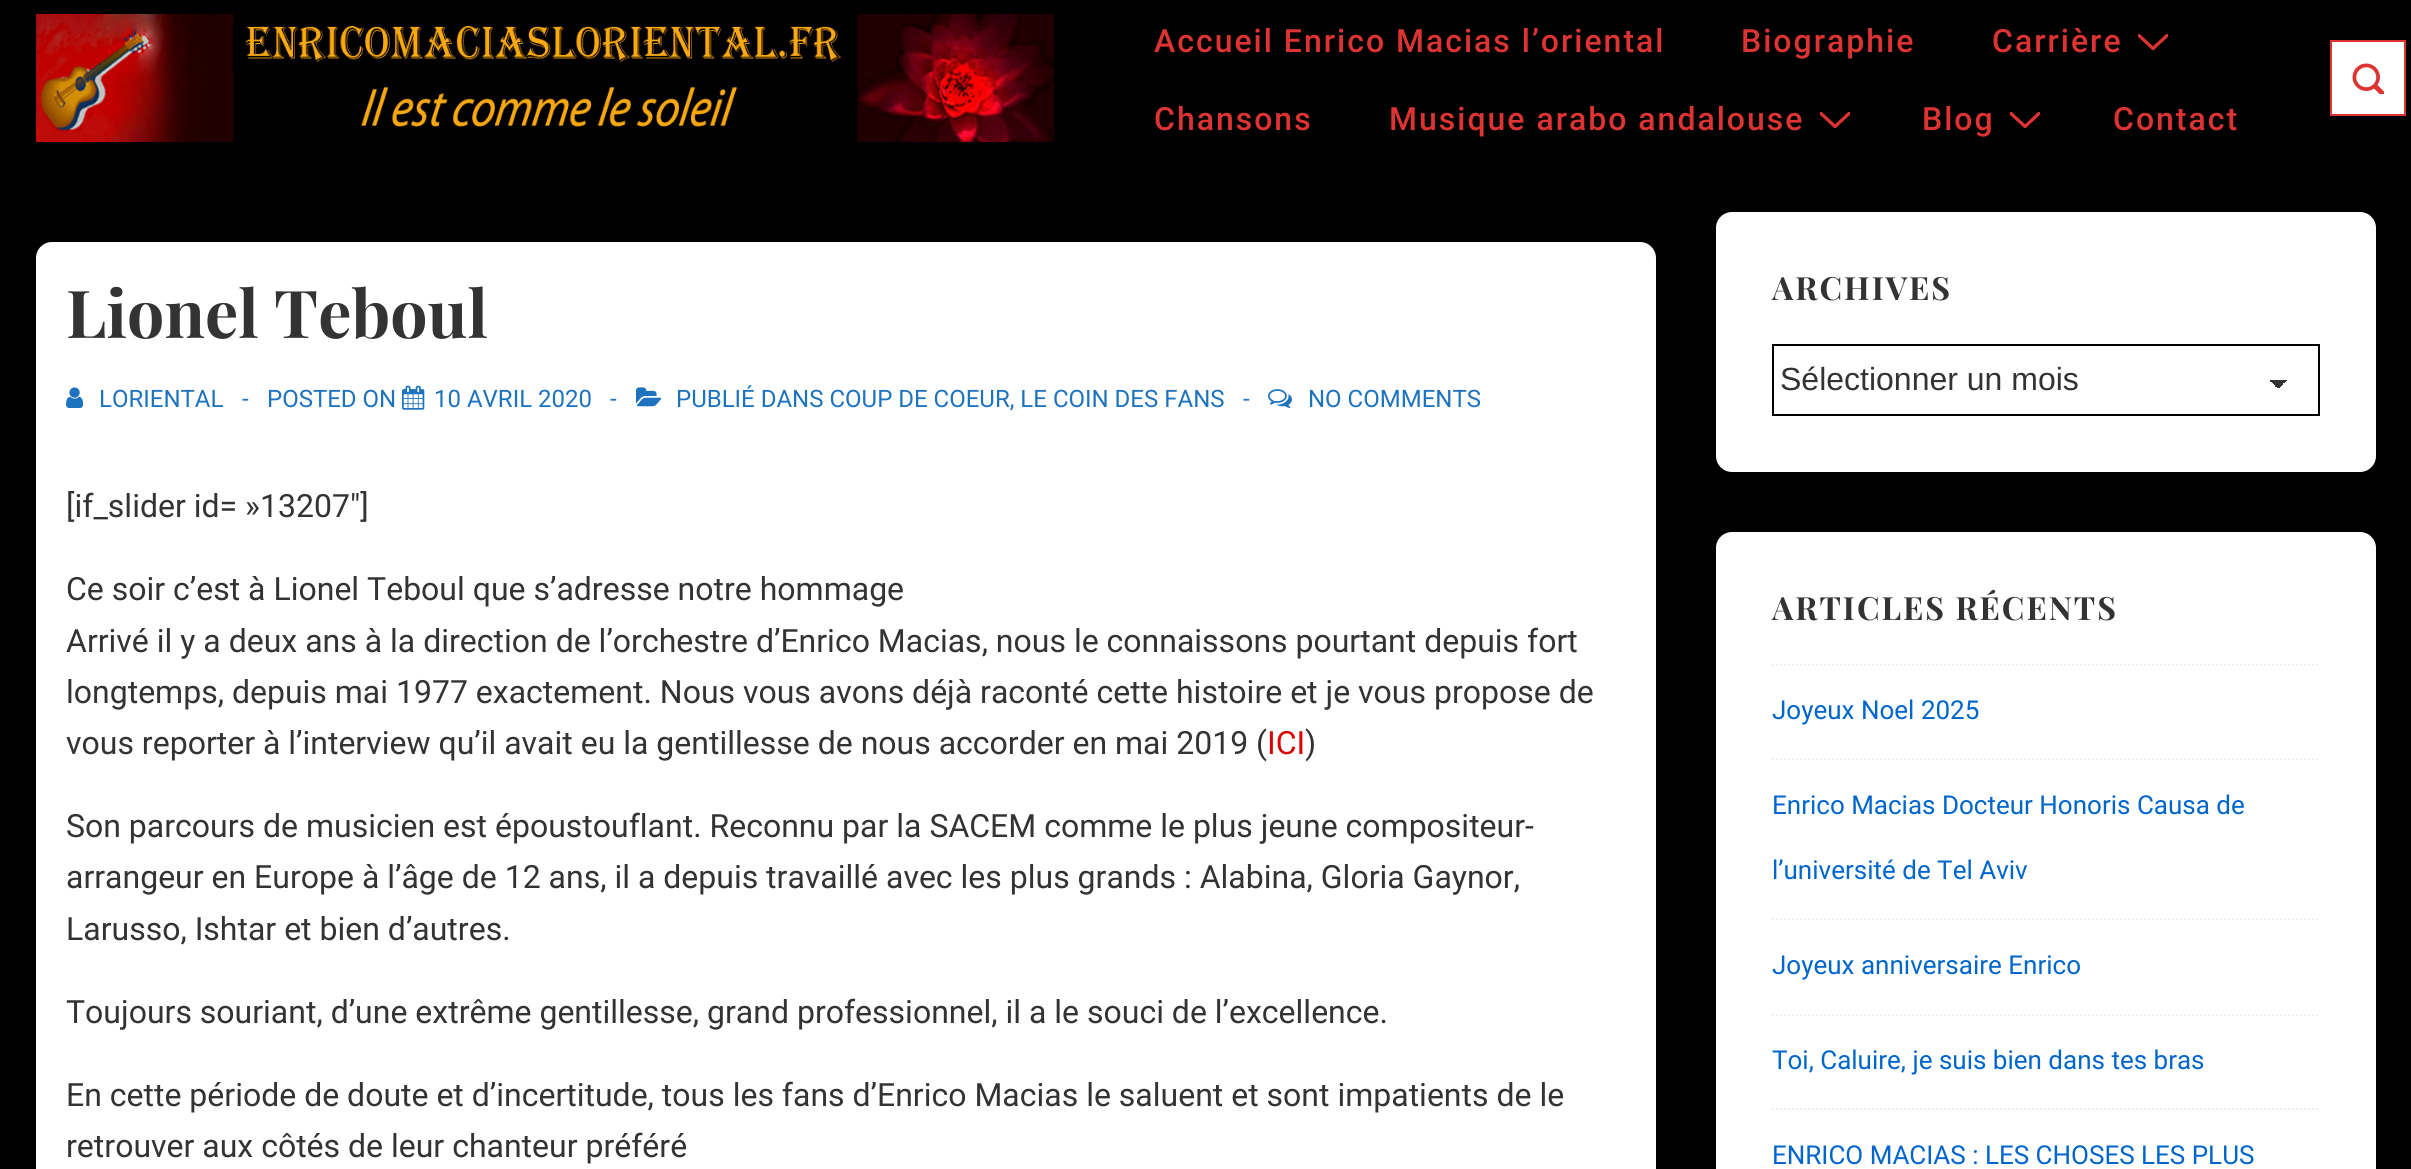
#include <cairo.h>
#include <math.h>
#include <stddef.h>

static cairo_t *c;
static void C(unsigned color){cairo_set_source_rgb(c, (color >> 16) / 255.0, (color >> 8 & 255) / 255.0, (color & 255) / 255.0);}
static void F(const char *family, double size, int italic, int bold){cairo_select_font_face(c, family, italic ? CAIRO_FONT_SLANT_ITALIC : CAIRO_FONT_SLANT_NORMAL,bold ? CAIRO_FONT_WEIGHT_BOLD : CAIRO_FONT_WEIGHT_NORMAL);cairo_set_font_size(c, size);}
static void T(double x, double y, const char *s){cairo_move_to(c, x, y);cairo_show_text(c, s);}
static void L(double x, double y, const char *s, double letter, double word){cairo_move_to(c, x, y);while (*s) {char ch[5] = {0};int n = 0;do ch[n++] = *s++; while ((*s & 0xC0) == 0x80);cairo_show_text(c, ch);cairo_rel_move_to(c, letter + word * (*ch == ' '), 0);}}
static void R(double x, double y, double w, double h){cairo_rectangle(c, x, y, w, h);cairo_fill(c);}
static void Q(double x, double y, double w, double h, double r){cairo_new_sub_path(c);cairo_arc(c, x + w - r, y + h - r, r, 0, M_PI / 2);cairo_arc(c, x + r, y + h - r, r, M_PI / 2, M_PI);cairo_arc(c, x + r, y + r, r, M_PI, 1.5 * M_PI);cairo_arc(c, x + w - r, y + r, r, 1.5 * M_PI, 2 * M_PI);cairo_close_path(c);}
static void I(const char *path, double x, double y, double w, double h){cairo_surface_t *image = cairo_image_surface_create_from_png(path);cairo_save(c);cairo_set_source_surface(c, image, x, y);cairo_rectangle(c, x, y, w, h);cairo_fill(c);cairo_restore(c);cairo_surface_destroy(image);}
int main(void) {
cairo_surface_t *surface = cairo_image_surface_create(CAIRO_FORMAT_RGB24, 2411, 1169);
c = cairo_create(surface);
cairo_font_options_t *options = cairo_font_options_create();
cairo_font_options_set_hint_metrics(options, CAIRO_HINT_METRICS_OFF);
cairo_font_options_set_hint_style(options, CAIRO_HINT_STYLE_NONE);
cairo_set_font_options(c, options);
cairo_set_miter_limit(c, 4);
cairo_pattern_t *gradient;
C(0x000000);
cairo_paint(c);
I("1.png",36,14,1018,128);
F("Roboto Medium",32,0,0);
C(0xdd3333);
L(1154,52,"Accueil Enrico Macias l’oriental",2,0);
L(1741,52,"Biographie",2,0);
L(1992,52,"Carrière",2,0);
cairo_save(c);
cairo_rectangle(c,2138,34,30,16);
cairo_clip(c);
cairo_new_path(c);
cairo_move_to(c,2139,35.5);
cairo_line_to(c,2153,48.5);
cairo_line_to(c,2167,35.5);
cairo_set_line_width(c,3.3);
cairo_set_line_cap(c,CAIRO_LINE_CAP_ROUND);
cairo_stroke(c);
cairo_restore(c);
L(1154,130,"Chansons",2,0);
L(1389,130,"Musique arabo andalouse",2,0);
cairo_save(c);
cairo_rectangle(c,1820,112,30,16);
cairo_clip(c);
cairo_new_path(c);
cairo_move_to(c,1821,113.5);
cairo_line_to(c,1835,126.5);
cairo_line_to(c,1849,113.5);
cairo_set_line_width(c,3.3);
cairo_set_line_cap(c,CAIRO_LINE_CAP_ROUND);
cairo_stroke(c);
cairo_restore(c);
L(1922,130,"Blog",2,0);
cairo_save(c);
cairo_rectangle(c,2010,112,30,16);
cairo_clip(c);
cairo_new_path(c);
cairo_move_to(c,2011,113.5);
cairo_line_to(c,2025,126.5);
cairo_line_to(c,2039,113.5);
cairo_set_line_width(c,3.3);
cairo_set_line_cap(c,CAIRO_LINE_CAP_ROUND);
cairo_stroke(c);
cairo_restore(c);
L(2113,130,"Contact",2,0);
C(0xffffff);
cairo_rectangle(c,2331,41,74,74);
cairo_fill_preserve(c);
C(0xdd3333);
cairo_stroke(c);
I("2.png",2352,63,32,31);
C(0xffffff);
Q(36,242,1620,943,16);
cairo_fill(c);
F("Playfair Display",66,0,1);
C(0x333333);
T(66,338,"Lionel Teboul");
I("3.png",66,387,18,21);
F("Roboto",24,0,0);
C(0x1e73be);
T(99,407,"LORIENTAL");
T(242,407,"-");
T(267,407,"POSTED ON");
I("4.png",402,385,23,25);
T(434,407,"10 AVRIL 2020");
T(610,407,"-");
I("5.png",636,387,26,20);
T(676,407,"PUBLIÉ DANS COUP DE COEUR, LE COIN DES FANS");
T(1243,407,"-");
I("6.png",1268,389,24,19);
T(1308,407,"NO COMMENTS");
F("Roboto",32,0,0);
C(0x333333);
T(66,517,"[if_slider id= »13207″]");
T(66,600,"Ce soir c’est à Lionel Teboul que s’adresse notre hommage");
T(66,652,"Arrivé il y a deux ans à la direction de l’orchestre d’Enrico Macias, nous le connaissons pourtant depuis fort");
T(66,703,"longtemps, depuis mai 1977 exactement. Nous vous avons déjà raconté cette histoire et je vous propose de");
T(66,754,"vous reporter à l’interview qu’il avait eu la gentillesse de nous accorder en mai 2019 (");
C(0xdd0202);
T(1267,754,"ICI");
C(0x333333);
T(1305,754,")");
T(66,837,"Son parcours de musicien est époustouflant. Reconnu par la SACEM comme le plus jeune compositeur-");
T(66,888,"arrangeur en Europe à l’âge de 12 ans, il a depuis travaillé avec les plus grands : Alabina, Gloria Gaynor,");
T(66,940,"Larusso, Ishtar et bien d’autres.");
T(66,1023,"Toujours souriant, d’une extrême gentillesse, grand professionnel, il a le souci de l’excellence.");
T(66,1106,"En cette période de doute et d’incertitude, tous les fans d’Enrico Macias le saluent et sont impatients de le");
T(66,1157,"retrouver aux côtés de leur chanteur préféré");
C(0xffffff);
Q(1716,212,660,260,16);
cairo_fill(c);
F("Playfair Display",32,0,1);
C(0x333333);
L(1772,300,"ARCHIVES",2,0);
gradient = cairo_pattern_create_linear(2278,379,2288,389);
cairo_pattern_add_color_stop_rgba(gradient,.5,0.2,0.2,0.2,1);
cairo_pattern_add_color_stop_rgba(gradient,.5,1,1,1,1);
cairo_set_source(c,gradient);
cairo_pattern_destroy(gradient);
R(2278,380,9,8);
gradient = cairo_pattern_create_linear(2268,389,2278,379);
cairo_pattern_add_color_stop_rgba(gradient,.5,1,1,1,1);
cairo_pattern_add_color_stop_rgba(gradient,.5,0.2,0.2,0.2,1);
cairo_set_source(c,gradient);
cairo_pattern_destroy(gradient);
R(2270,380,8,8);
cairo_rectangle(c,1773,345,546,70);
C(0x000000);
cairo_stroke(c);
F("Liberation Sans",32,0,0);
C(0x333333);
T(1780,390,"Sélectionner un mois");
C(0xffffff);
Q(1716,532,660,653,16);
cairo_fill(c);
F("Playfair Display",32,0,1);
C(0x333333);
L(1772,620,"ARTICLES RÉCENTS",2,0);
cairo_new_path(c);
cairo_move_to(c,1772,665);
cairo_line_to(c,2320,665);
C(0xeeeeee);
cairo_set_dash(c,(double[]){2,2},2,0);
cairo_stroke(c);
F("Roboto",26,0,0);
C(0x0066cc);
T(1772,719,"Joyeux Noel 2025");
cairo_new_path(c);
cairo_move_to(c,1772,759);
cairo_line_to(c,2320,759);
C(0xeeeeee);
cairo_stroke(c);
C(0x0066cc);
T(1772,814,"Enrico Macias Docteur Honoris Causa de");
T(1772,879,"l’université de Tel Aviv");
cairo_new_path(c);
cairo_move_to(c,1772,919);
cairo_line_to(c,2320,919);
C(0xeeeeee);
cairo_stroke(c);
C(0x0066cc);
T(1772,974,"Joyeux anniversaire Enrico");
cairo_new_path(c);
cairo_move_to(c,1772,1015);
cairo_line_to(c,2320,1015);
C(0xeeeeee);
cairo_stroke(c);
C(0x0066cc);
T(1772,1069,"Toi, Caluire, je suis bien dans tes bras");
cairo_new_path(c);
cairo_move_to(c,1772,1109);
cairo_line_to(c,2320,1109);
C(0xeeeeee);
cairo_stroke(c);
C(0x0066cc);
T(1772,1164,"ENRICO MACIAS : LES CHOSES LES PLUS");
cairo_surface_write_to_png(surface, "o.png");
cairo_font_options_destroy(options);
cairo_destroy(c);
cairo_surface_destroy(surface);
return 0;
}
